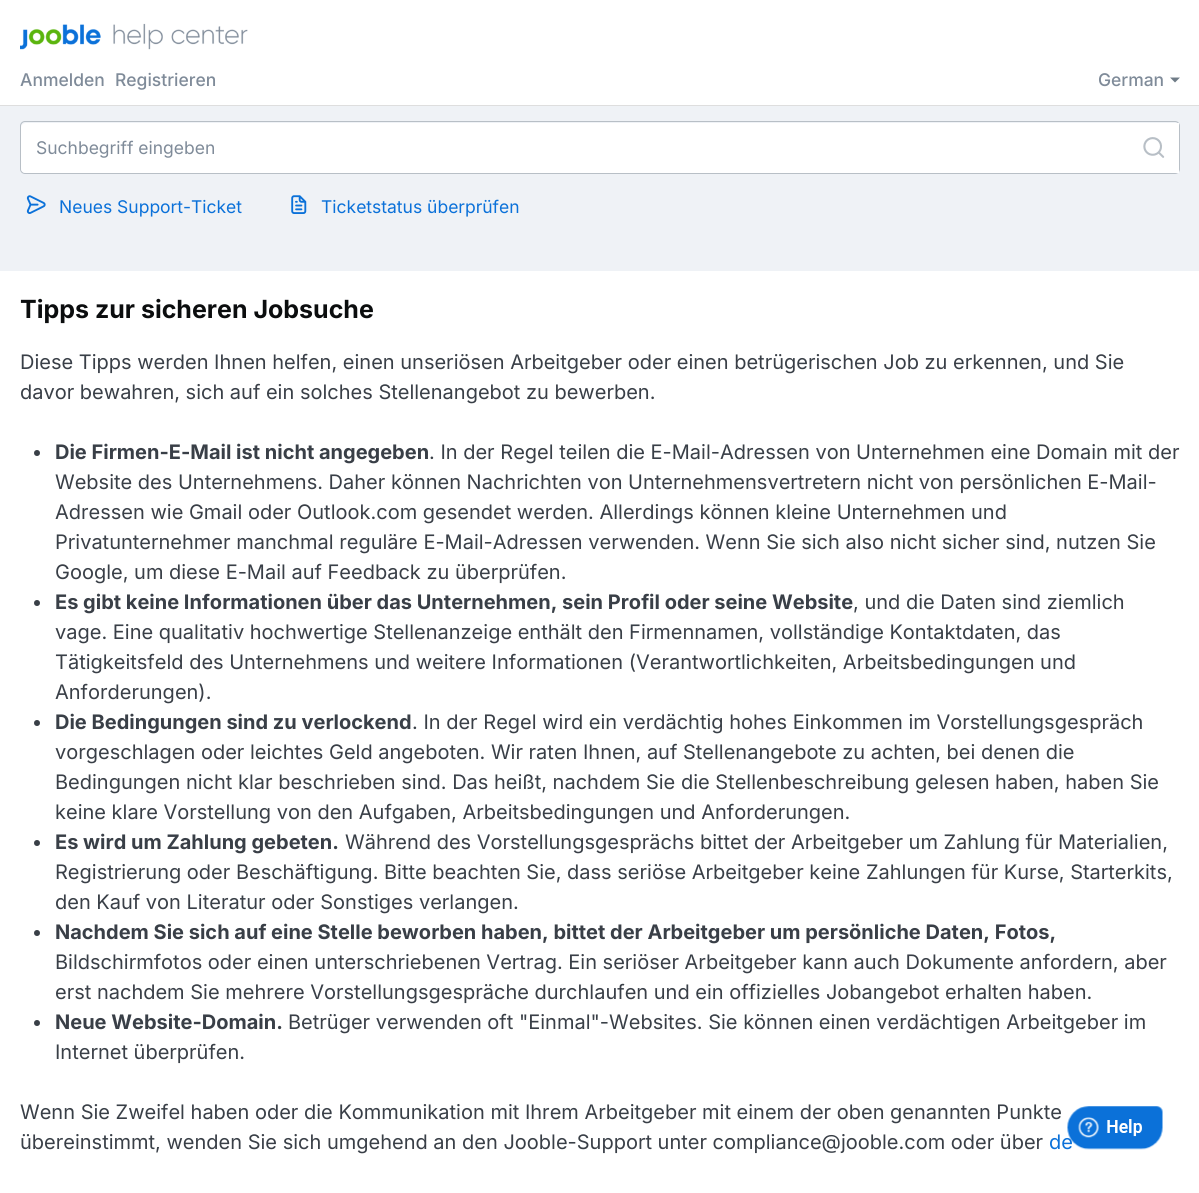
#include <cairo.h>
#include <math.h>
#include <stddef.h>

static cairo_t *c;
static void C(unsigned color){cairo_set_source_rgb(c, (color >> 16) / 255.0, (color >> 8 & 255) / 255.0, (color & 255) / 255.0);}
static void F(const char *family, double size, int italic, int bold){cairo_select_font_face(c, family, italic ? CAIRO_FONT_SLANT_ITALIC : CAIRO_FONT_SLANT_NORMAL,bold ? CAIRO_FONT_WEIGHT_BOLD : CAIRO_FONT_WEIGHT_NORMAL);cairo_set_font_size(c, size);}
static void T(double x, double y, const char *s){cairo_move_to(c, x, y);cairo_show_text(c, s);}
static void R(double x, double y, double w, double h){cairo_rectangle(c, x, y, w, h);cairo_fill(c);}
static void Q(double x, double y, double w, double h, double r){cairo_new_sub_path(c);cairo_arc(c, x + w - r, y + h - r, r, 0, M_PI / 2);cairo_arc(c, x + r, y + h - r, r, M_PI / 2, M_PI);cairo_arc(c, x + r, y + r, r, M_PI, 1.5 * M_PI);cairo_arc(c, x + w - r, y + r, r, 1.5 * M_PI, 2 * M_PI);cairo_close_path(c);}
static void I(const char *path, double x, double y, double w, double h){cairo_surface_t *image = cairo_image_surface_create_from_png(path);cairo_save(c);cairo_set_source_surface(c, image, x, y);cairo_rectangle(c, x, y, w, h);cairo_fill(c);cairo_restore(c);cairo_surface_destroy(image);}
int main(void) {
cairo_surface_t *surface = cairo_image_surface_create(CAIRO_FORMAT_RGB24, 1199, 1193);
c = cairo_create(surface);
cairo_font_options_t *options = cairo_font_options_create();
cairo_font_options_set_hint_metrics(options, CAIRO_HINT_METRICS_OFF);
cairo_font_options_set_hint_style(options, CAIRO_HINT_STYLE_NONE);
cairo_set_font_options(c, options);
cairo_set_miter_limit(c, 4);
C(0xeff2f6);
cairo_paint(c);
C(0xffffff);
R(0,0,1199,105);
C(0xdedede);
R(0,105,1199,1);
I("1.png",20,23,228,27);
F("Inter Medium",17.5,0,0);
C(0x7f8b99);
T(20,86,"Anmelden");
T(115,86,"Registrieren");
T(1098,86,"German");
C(0x6f7c87);
cairo_new_path(c);
cairo_move_to(c,1170,77.5);
cairo_line_to(c,1180,77.5);
cairo_line_to(c,1175,82.5);
cairo_close_path(c);
cairo_fill(c);
Q(20.5,121.5,1159,52,4.5);
C(0xb8bfc6);
cairo_set_line_width(c,1);
cairo_stroke(c);
C(0xffffff);
cairo_new_path(c);
cairo_move_to(c,26,123);
cairo_line_to(c,1179,123);
cairo_line_to(c,1179,173);
cairo_line_to(c,26,173);
cairo_curve_to(c,23,173,21,171,21,168);
cairo_line_to(c,21,128);
cairo_curve_to(c,21,125,23,123,26,123);
cairo_close_path(c);
cairo_fill(c);
F("Inter",17.5,0,0);
C(0x7f8b99);
T(36,154,"Suchbegriff eingeben");
I("2.png",1143,137,22,21);
I("3.png",26,195,20,19);
C(0x0b71d9);
T(59,213,"Neues Support-Ticket");
I("4.png",291,195,16,19);
T(321,213,"Ticketstatus überprüfen");
C(0xffffff);
R(0,271,1199,922);
F("Inter",25,0,1);
C(0x0b0d0e);
T(20,318,"Tipps zur sicheren Jobsuche");
F("Inter",20,0,0);
C(0x393f47);
T(20,369,"Diese Tipps werden Ihnen helfen, einen unseriösen Arbeitgeber oder einen betrügerischen Job zu erkennen, und Sie");
T(20,399,"davor bewahren, sich auf ein solches Stellenangebot zu bewerben.");
cairo_new_path(c);
cairo_arc(c,37,453,3,0,2 * M_PI);
cairo_fill(c);
F("Inter",20,0,1);
T(55,459,"Die Firmen-E-Mail ist nicht angegeben");
F("Inter",20,0,0);
T(429,459,". In der Regel teilen die E-Mail-Adressen von Unternehmen eine Domain mit der");
T(55,489,"Website des Unternehmens. Daher können Nachrichten von Unternehmensvertretern nicht von persönlichen E-Mail-");
T(55,519,"Adressen wie Gmail oder Outlook.com gesendet werden. Allerdings können kleine Unternehmen und");
T(55,549,"Privatunternehmer manchmal reguläre E-Mail-Adressen verwenden. Wenn Sie sich also nicht sicher sind, nutzen Sie");
T(55,579,"Google, um diese E-Mail auf Feedback zu überprüfen.");
cairo_new_path(c);
cairo_arc(c,37,603,3,0,2 * M_PI);
cairo_fill(c);
F("Inter",20,0,1);
T(55,609,"Es gibt keine Informationen über das Unternehmen, sein Profil oder seine Website");
F("Inter",20,0,0);
T(853,609,", und die Daten sind ziemlich");
T(55,639,"vage. Eine qualitativ hochwertige Stellenanzeige enthält den Firmennamen, vollständige Kontaktdaten, das");
T(55,669,"Tätigkeitsfeld des Unternehmens und weitere Informationen (Verantwortlichkeiten, Arbeitsbedingungen und");
T(55,699,"Anforderungen).");
cairo_new_path(c);
cairo_arc(c,37,723,3,0,2 * M_PI);
cairo_fill(c);
F("Inter",20,0,1);
T(55,729,"Die Bedingungen sind zu verlockend");
F("Inter",20,0,0);
T(412,729,". In der Regel wird ein verdächtig hohes Einkommen im Vorstellungsgespräch");
T(55,759,"vorgeschlagen oder leichtes Geld angeboten. Wir raten Ihnen, auf Stellenangebote zu achten, bei denen die");
T(55,789,"Bedingungen nicht klar beschrieben sind. Das heißt, nachdem Sie die Stellenbeschreibung gelesen haben, haben Sie");
T(55,819,"keine klare Vorstellung von den Aufgaben, Arbeitsbedingungen und Anforderungen.");
cairo_new_path(c);
cairo_arc(c,37,843,3,0,2 * M_PI);
cairo_fill(c);
F("Inter",20,0,1);
T(55,849,"Es wird um Zahlung gebeten.");
F("Inter",20,0,0);
T(345,849,"Während des Vorstellungsgesprächs bittet der Arbeitgeber um Zahlung für Materialien,");
T(55,879,"Registrierung oder Beschäftigung. Bitte beachten Sie, dass seriöse Arbeitgeber keine Zahlungen für Kurse, Starterkits,");
T(55,909,"den Kauf von Literatur oder Sonstiges verlangen.");
cairo_new_path(c);
cairo_arc(c,37,933,3,0,2 * M_PI);
cairo_fill(c);
F("Inter",20,0,1);
T(55,939,"Nachdem Sie sich auf eine Stelle beworben haben, bittet der Arbeitgeber um persönliche Daten, Fotos,");
F("Inter",20,0,0);
T(55,969,"Bildschirmfotos oder einen unterschriebenen Vertrag. Ein seriöser Arbeitgeber kann auch Dokumente anfordern, aber");
T(55,999,"erst nachdem Sie mehrere Vorstellungsgespräche durchlaufen und ein offizielles Jobangebot erhalten haben.");
cairo_new_path(c);
cairo_arc(c,37,1023,3,0,2 * M_PI);
cairo_fill(c);
F("Inter",20,0,1);
T(55,1029,"Neue Website-Domain.");
F("Inter",20,0,0);
T(288,1029,"Betrüger verwenden oft \"Einmal\"-Websites. Sie können einen verdächtigen Arbeitgeber im");
T(55,1059,"Internet überprüfen.");
T(20,1119,"Wenn Sie Zweifel haben oder die Kommunikation mit Ihrem Arbeitgeber mit einem der oben genannten Punkte");
T(20,1149,"übereinstimmt, wenden Sie sich umgehend an den Jooble-Support unter compliance@jooble.com oder über");
C(0x0b71d9);
T(1049,1149,"de");
I("5.png",1067,1106,96,44);
cairo_surface_write_to_png(surface, "o.png");
cairo_font_options_destroy(options);
cairo_destroy(c);
cairo_surface_destroy(surface);
return 0;
}
